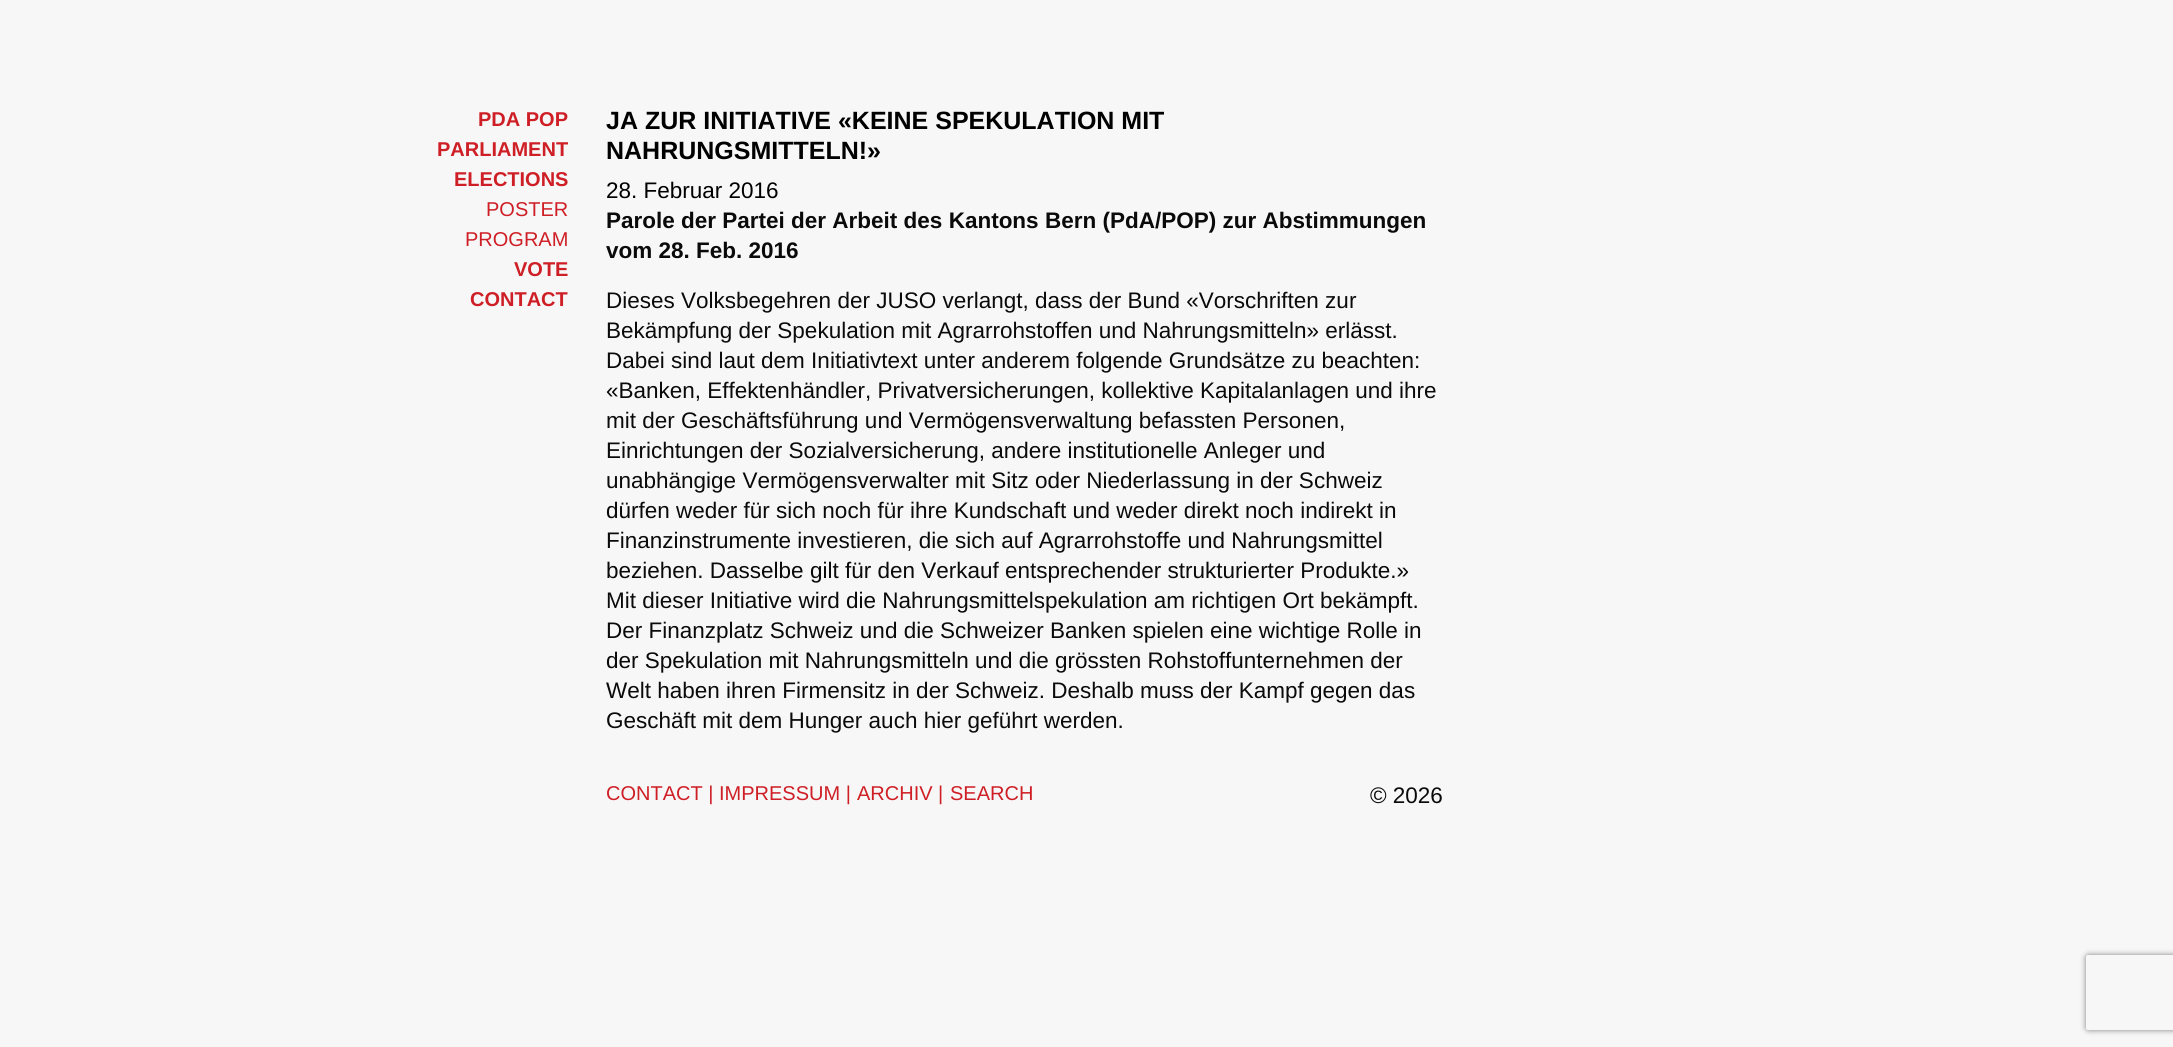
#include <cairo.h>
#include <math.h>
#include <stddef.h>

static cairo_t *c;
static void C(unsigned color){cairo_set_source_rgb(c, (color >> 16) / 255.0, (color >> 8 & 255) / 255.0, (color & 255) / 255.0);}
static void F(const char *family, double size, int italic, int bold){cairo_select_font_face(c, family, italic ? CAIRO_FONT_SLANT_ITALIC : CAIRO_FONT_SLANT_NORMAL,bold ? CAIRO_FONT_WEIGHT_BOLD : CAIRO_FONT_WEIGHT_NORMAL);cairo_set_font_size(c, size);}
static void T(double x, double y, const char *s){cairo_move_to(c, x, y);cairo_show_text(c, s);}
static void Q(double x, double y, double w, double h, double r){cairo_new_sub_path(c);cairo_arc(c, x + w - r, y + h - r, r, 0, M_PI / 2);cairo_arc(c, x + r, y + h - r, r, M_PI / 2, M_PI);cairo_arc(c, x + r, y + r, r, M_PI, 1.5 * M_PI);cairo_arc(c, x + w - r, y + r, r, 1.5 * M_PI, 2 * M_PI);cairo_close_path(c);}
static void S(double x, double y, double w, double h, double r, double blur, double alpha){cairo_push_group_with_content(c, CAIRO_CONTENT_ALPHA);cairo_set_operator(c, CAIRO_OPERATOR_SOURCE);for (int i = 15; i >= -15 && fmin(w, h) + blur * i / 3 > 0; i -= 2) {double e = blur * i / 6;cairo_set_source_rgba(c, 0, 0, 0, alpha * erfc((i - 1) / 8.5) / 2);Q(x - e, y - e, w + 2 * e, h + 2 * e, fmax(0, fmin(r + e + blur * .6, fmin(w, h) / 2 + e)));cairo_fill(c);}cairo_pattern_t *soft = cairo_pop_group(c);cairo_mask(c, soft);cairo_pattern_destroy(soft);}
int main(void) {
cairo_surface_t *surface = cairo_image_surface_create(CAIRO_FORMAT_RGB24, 2173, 1047);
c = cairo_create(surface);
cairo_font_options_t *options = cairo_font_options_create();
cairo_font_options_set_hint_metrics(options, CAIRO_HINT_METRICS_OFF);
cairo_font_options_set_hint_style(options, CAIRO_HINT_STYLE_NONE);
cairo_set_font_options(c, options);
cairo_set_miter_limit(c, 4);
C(0xf7f7f7);
cairo_paint(c);
F("Liberation Sans",20,0,1);
C(0xcf1f26);
T(478,126,"PDA POP");
T(437,156,"PARLIAMENT");
T(454,186,"ELECTIONS");
F("Liberation Sans",20,0,0);
T(486,216,"POSTER");
T(465,246,"PROGRAM");
F("Liberation Sans",20,0,1);
T(514,276,"VOTE");
T(470,306,"CONTACT");
F("Liberation Sans",25,0,1);
C(0x000000);
T(606,129,"JA ZUR INITIATIVE «KEINE SPEKULATION MIT");
T(606,159,"NAHRUNGSMITTELN!»");
F("Liberation Sans",22.5,0,0);
T(606,198,"28. Februar 2016");
F("Liberation Sans",22.5,0,1);
C(0x0a0a0a);
T(606,228,"Parole der Partei der Arbeit des Kantons Bern (PdA/POP) zur Abstimmungen");
T(606,258,"vom 28. Feb. 2016");
F("Liberation Sans",22.5,0,0);
T(606,308,"Dieses Volksbegehren der JUSO verlangt, dass der Bund «Vorschriften zur");
T(606,338,"Bekämpfung der Spekulation mit Agrarrohstoffen und Nahrungsmitteln» erlässt.");
T(606,368,"Dabei sind laut dem Initiativtext unter anderem folgende Grundsätze zu beachten:");
T(606,398,"«Banken, Effektenhändler, Privatversicherungen, kollektive Kapitalanlagen und ihre");
T(606,428,"mit der Geschäftsführung und Vermögensverwaltung befassten Personen,");
T(606,458,"Einrichtungen der Sozialversicherung, andere institutionelle Anleger und");
T(606,488,"unabhängige Vermögensverwalter mit Sitz oder Niederlassung in der Schweiz");
T(606,518,"dürfen weder für sich noch für ihre Kundschaft und weder direkt noch indirekt in");
T(606,548,"Finanzinstrumente investieren, die sich auf Agrarrohstoffe und Nahrungsmittel");
T(606,578,"beziehen. Dasselbe gilt für den Verkauf entsprechender strukturierter Produkte.»");
T(606,608,"Mit dieser Initiative wird die Nahrungsmittelspekulation am richtigen Ort bekämpft.");
T(606,638,"Der Finanzplatz Schweiz und die Schweizer Banken spielen eine wichtige Rolle in");
T(606,668,"der Spekulation mit Nahrungsmitteln und die grössten Rohstoffunternehmen der");
T(606,698,"Welt haben ihren Firmensitz in der Schweiz. Deshalb muss der Kampf gegen das");
T(606,728,"Geschäft mit dem Hunger auch hier geführt werden.");
F("Liberation Sans",20,0,0);
C(0xcf1f26);
T(606,800,"CONTACT |");
T(719,800,"IMPRESSUM |");
T(857,800,"ARCHIV |");
T(950,800,"SEARCH");
F("Liberation Sans",22.5,0,0);
C(0x0a0a0a);
T(1370,803,"© 2026");
cairo_save(c);
cairo_set_fill_rule(c,CAIRO_FILL_RULE_EVEN_ODD);
cairo_new_path(c);
cairo_move_to(c,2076,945);
cairo_line_to(c,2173,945);
cairo_line_to(c,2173,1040);
cairo_line_to(c,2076,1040);
cairo_close_path(c);
cairo_move_to(c,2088.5,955);
cairo_line_to(c,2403.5,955);
cairo_curve_to(c,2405,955,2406,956,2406,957.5);
cairo_line_to(c,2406,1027.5);
cairo_curve_to(c,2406,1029,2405,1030,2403.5,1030);
cairo_line_to(c,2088.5,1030);
cairo_curve_to(c,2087,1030,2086,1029,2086,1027.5);
cairo_line_to(c,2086,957.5);
cairo_curve_to(c,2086,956,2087,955,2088.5,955);
cairo_close_path(c);
cairo_clip(c);
C(0x808080);
S(2086,955,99,75,2.5,3,1);
cairo_restore(c);
cairo_surface_write_to_png(surface, "o.png");
cairo_font_options_destroy(options);
cairo_destroy(c);
cairo_surface_destroy(surface);
return 0;
}
